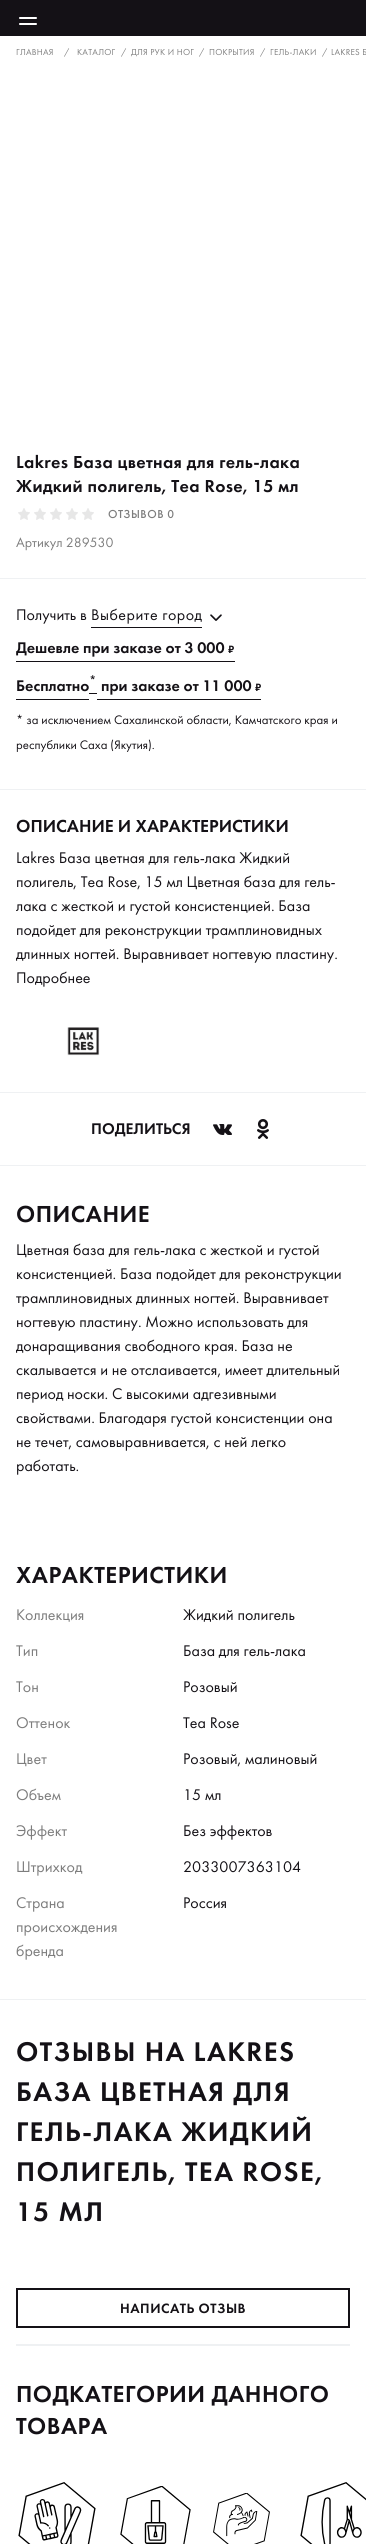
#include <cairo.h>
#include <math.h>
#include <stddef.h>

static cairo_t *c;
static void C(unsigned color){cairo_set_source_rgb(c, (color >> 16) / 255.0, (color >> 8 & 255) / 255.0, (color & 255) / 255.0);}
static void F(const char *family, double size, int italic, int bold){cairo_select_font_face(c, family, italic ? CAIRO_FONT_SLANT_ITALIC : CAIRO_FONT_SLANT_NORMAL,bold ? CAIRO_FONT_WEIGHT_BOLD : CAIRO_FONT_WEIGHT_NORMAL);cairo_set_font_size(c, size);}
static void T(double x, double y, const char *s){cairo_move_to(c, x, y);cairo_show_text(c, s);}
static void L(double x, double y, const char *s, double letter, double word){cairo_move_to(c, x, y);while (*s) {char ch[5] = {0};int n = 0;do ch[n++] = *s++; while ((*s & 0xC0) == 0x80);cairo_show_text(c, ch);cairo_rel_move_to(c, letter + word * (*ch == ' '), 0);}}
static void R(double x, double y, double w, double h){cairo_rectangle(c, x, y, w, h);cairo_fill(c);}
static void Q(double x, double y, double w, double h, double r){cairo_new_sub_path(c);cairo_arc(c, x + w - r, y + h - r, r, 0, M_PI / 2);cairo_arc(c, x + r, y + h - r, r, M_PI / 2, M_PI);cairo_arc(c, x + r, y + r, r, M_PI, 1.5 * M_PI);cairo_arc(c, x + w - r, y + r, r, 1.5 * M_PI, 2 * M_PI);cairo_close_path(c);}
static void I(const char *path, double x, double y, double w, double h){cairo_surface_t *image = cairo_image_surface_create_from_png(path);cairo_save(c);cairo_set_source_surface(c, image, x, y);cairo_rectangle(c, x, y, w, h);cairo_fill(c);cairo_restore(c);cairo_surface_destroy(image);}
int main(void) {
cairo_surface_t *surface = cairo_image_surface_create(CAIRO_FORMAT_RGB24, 366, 2544);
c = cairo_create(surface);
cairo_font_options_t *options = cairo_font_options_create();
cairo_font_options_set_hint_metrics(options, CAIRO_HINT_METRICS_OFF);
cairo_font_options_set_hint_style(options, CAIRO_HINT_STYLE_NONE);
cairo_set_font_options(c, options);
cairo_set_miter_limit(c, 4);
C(0xffffff);
cairo_paint(c);
C(0x141116);
R(0,0,366,36);
C(0xffffff);
Q(19,17,18,2,1);
cairo_fill(c);
Q(19,23,18,2,1);
cairo_fill(c);
F("Futura PT",9,0,0);
C(0x7d7d7d);
L(16,55,"ГЛАВНАЯ",.25,0);
L(64,55,"/",.25,0);
L(77,55,"КАТАЛОГ",.25,0);
L(121,55,"/",.25,0);
L(131,55,"ДЛЯ РУК И НОГ",.25,0);
L(199,55,"/",.25,0);
L(209,55,"ПОКРЫТИЯ",.25,0);
L(260,55,"/",.25,0);
L(270,55,"ГЕЛЬ-ЛАКИ",.25,0);
L(322,55,"/",.25,0);
L(331,55,"LAKRES Б",.25,0);
F("Futura PT Medium",18,0,0);
C(0x141116);
L(16,468,"Lakres База цветная для гель-лака",.35,0);
L(16,492,"Жидкий полигель, Tea Rose, 15 мл",.35,0);
I("1.png",18,508,12,12);
I("1.png",34,508,12,12);
I("1.png",50,508,12,12);
I("1.png",66,508,12,12);
I("1.png",82,508,12,12);
F("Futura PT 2 Medium",12,0,0);
C(0x7d7d7d);
L(108,518,"ОТЗЫВОВ 0",.5,0);
F("Futura PT",14,0,0);
T(16,547,"Артикул 289530");
C(0xeff1f3);
R(0,578,366,1);
F("Futura PT",16,0,0);
C(0x141116);
T(16,620,"Получить в");
R(91,627,111,1);
L(91,620,"Выберите город",.5,0);
I("2.png",210,614,12,7);
F("Futura PT Medium",16,0,0);
T(16,653,"Дешевле при заказе от 3 000");
R(16,661,219,1);
F("Futura PT Medium",11,0,0);
T(228,653,"₽");
F("Futura PT Medium",13,0,0);
T(89,685,"*");
R(89,693,8,1);
F("Futura PT Medium",16,0,0);
T(16,691,"Бесплатно");
R(16,699,73,1);
T(101,691,"при заказе от 11 000");
R(97,699,164,1);
F("Futura PT Medium",11,0,0);
T(255,691,"₽");
F("Futura PT",12.8,0,0);
T(16,724,"* за исключением Сахалинской области, Камчатского края и");
T(16,749,"республики Саха (Якутия).");
C(0xeff1f3);
R(0,789,366,1);
F("Futura PT Medium",18,0,0);
C(0x141116);
T(16,832,"ОПИСАНИЕ И ХАРАКТЕРИСТИКИ");
F("Futura PT",16,0,0);
T(16,863,"Lakres База цветная для гель-лака Жидкий");
T(16,887,"полигель, Tea Rose, 15 мл Цветная база для гель-");
T(16,911,"лака с жесткой и густой консистенцией. База");
T(16,935,"подойдет для реконструкции трамплиновидных");
T(16,959,"длинных ногтей. Выравнивает ногтевую пластину.");
T(16,983,"Подробнее");
I("3.png",67,1027,33,29);
C(0xeff1f3);
R(0,1092,366,1);
R(0,1165,366,1);
F("Futura PT Medium",16,0,0);
C(0x141116);
T(91,1134,"ПОДЕЛИТЬСЯ");
I("4.png",213,1124,19,11);
I("5.png",257,1119,12,20);
F("Futura PT Medium",24,0,0);
L(16,1222,"ОПИСАНИЕ",.5,0);
F("Futura PT",16,0,0);
T(16,1255,"Цветная база для гель-лака с жесткой и густой");
T(16,1279,"консистенцией. База подойдет для реконструкции");
T(16,1303,"трамплиновидных длинных ногтей. Выравнивает");
T(16,1327,"ногтевую пластину. Можно использовать для");
T(16,1351,"донаращивания свободного края. База не");
T(16,1375,"скалывается и не отслаивается, имеет длительный");
T(16,1399,"период носки. С высокими адгезивными");
T(16,1423,"свойствами. Благодаря густой консистенции она");
T(16,1447,"не течет, самовыравнивается, с ней легко");
T(16,1471,"работать.");
C(0xeff1f3);
R(0,1999,366,1);
F("Futura PT Medium",24,0,0);
C(0x141116);
L(16,1583,"ХАРАКТЕРИСТИКИ",.5,0);
F("Futura PT",16,0,0);
C(0x7d7d7d);
T(16,1620,"Коллекция");
C(0x141116);
T(183,1620,"Жидкий полигель");
C(0x7d7d7d);
T(16,1656,"Тип");
C(0x141116);
T(183,1656,"База для гель-лака");
C(0x7d7d7d);
T(16,1692,"Тон");
C(0x141116);
T(183,1692,"Розовый");
C(0x7d7d7d);
T(16,1728,"Оттенок");
C(0x141116);
T(183,1728,"Tea Rose");
C(0x7d7d7d);
T(16,1764,"Цвет");
C(0x141116);
T(183,1764,"Розовый, малиновый");
C(0x7d7d7d);
T(16,1800,"Объем");
C(0x141116);
T(183,1800,"15 мл");
C(0x7d7d7d);
T(16,1836,"Эффект");
C(0x141116);
T(183,1836,"Без эффектов");
C(0x7d7d7d);
T(16,1872,"Штрихкод");
C(0x141116);
T(183,1872,"2033007363104");
C(0x7d7d7d);
T(16,1908,"Страна");
T(16,1932,"происхождения");
T(16,1956,"бренда");
C(0x141116);
T(183,1908,"Россия");
C(0xeff1f3);
R(16,2344,334,2);
F("Futura PT Medium",28,0,0);
C(0x141116);
L(16,2061,"ОТЗЫВЫ НА LAKRES",1.4,0);
L(16,2101,"БАЗА ЦВЕТНАЯ ДЛЯ",1.4,0);
L(16,2141,"ГЕЛЬ-ЛАКА ЖИДКИЙ",1.4,0);
L(16,2181,"ПОЛИГЕЛЬ, TEA ROSE,",1.4,0);
L(16,2221,"15 МЛ",1.4,0);
cairo_rectangle(c,17,2289,332,38);
cairo_stroke(c);
F("Futura PT Medium",14,0,0);
L(120,2313,"НАПИСАТЬ ОТЗЫВ",.5,0);
F("Futura PT Medium",24,0,0);
L(16,2402,"ПОДКАТЕГОРИИ ДАННОГО",.5,0);
L(16,2434,"ТОВАРА",.5,0);
I("6.png",18,2482,78,62);
I("7.png",120,2486,71,58);
I("8.png",213,2493,57,51);
I("9.png",300,2482,66,62);
cairo_surface_write_to_png(surface, "o.png");
cairo_font_options_destroy(options);
cairo_destroy(c);
cairo_surface_destroy(surface);
return 0;
}
